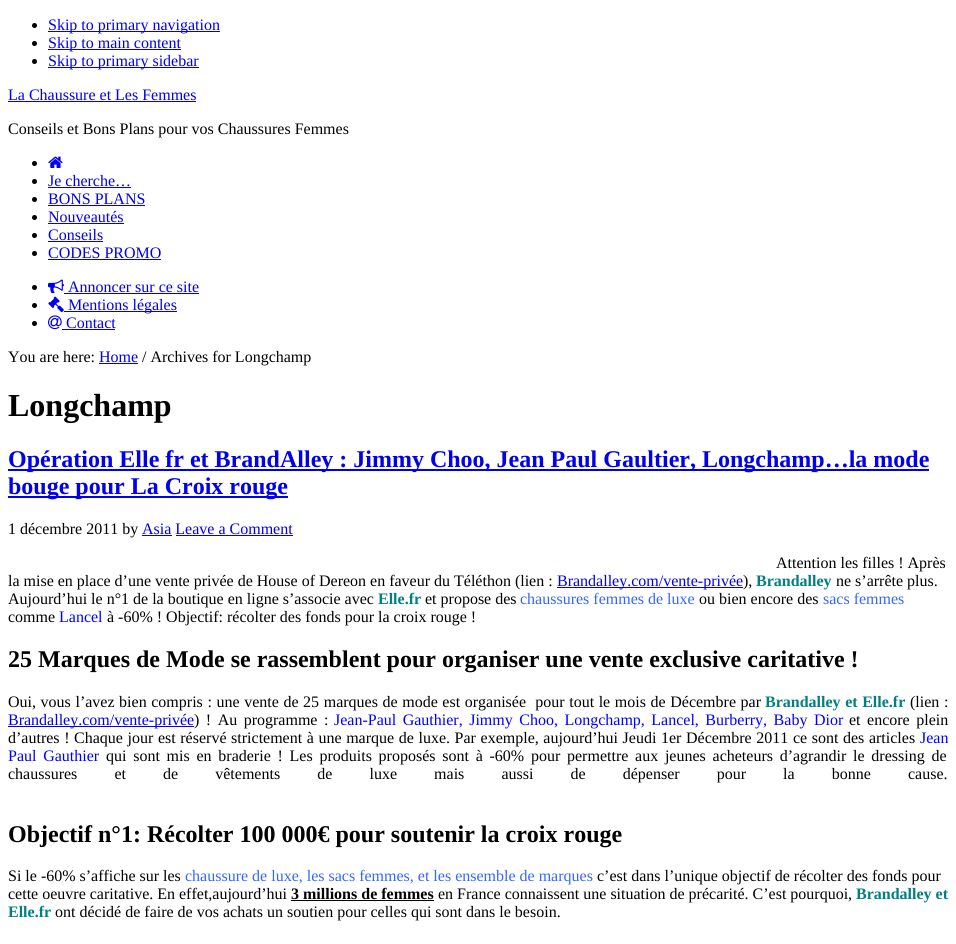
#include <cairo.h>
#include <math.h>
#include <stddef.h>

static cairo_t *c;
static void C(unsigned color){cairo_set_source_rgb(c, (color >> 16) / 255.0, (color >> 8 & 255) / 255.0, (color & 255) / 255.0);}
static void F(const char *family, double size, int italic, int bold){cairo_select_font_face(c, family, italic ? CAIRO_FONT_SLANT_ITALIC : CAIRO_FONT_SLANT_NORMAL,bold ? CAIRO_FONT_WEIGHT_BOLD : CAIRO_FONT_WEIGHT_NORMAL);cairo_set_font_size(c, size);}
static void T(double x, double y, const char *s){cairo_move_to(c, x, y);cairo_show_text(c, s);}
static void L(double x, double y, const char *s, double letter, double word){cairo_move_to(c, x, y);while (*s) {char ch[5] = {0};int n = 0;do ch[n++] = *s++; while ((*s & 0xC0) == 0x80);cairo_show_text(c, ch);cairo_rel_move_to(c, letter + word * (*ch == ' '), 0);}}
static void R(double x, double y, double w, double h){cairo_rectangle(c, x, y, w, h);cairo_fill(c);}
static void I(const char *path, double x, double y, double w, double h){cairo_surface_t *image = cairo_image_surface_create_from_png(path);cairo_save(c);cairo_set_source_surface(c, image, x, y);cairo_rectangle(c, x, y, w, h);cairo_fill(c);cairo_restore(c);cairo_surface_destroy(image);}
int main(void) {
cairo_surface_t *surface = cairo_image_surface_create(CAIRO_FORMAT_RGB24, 956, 944);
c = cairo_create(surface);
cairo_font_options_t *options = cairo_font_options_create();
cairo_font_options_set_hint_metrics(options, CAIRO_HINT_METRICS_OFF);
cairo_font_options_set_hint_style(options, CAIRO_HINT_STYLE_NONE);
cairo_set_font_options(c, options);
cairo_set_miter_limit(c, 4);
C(0xffffff);
cairo_paint(c);
C(0x000000);
cairo_arc(c,34.5,25.5,2.5,0,2 * M_PI);
cairo_fill(c);
C(0x0000ee);
R(48,31,172,1);
F("Liberation Serif",16,0,0);
T(48,30,"Skip to primary navigation");
C(0x000000);
cairo_new_path(c);
cairo_arc(c,34.5,43.5,2.5,0,2 * M_PI);
cairo_fill(c);
C(0x0000ee);
R(48,49,133,1);
T(48,48,"Skip to main content");
C(0x000000);
cairo_new_path(c);
cairo_arc(c,34.5,61.5,2.5,0,2 * M_PI);
cairo_fill(c);
C(0x0000ee);
R(48,67,151,1);
T(48,66,"Skip to primary sidebar");
T(8,100,"La Chaussure et Les Femmes");
R(8,101,188,1);
C(0x000000);
T(8,134,"Conseils et Bons Plans pour vos Chaussures Femmes");
cairo_new_path(c);
cairo_arc(c,34.5,163.5,2.5,0,2 * M_PI);
cairo_fill(c);
I("1.png",48,156,15,12);
cairo_arc(c,34.5,181.5,2.5,0,2 * M_PI);
cairo_fill(c);
C(0x0000ee);
T(48,186,"Je cherche…");
R(48,187,83,1);
C(0x000000);
cairo_new_path(c);
cairo_arc(c,34.5,199.5,2.5,0,2 * M_PI);
cairo_fill(c);
C(0x0000ee);
T(48,204,"BONS PLANS");
R(48,205,97,1);
C(0x000000);
cairo_new_path(c);
cairo_arc(c,34.5,217.5,2.5,0,2 * M_PI);
cairo_fill(c);
C(0x0000ee);
T(48,222,"Nouveautés");
R(48,223,76,1);
C(0x000000);
cairo_new_path(c);
cairo_arc(c,34.5,235.5,2.5,0,2 * M_PI);
cairo_fill(c);
C(0x0000ee);
T(48,240,"Conseils");
R(48,241,55,1);
C(0x000000);
cairo_new_path(c);
cairo_arc(c,34.5,253.5,2.5,0,2 * M_PI);
cairo_fill(c);
C(0x0000ee);
T(48,258,"CODES PROMO");
R(48,259,113,1);
C(0x000000);
cairo_new_path(c);
cairo_arc(c,34.5,287.5,2.5,0,2 * M_PI);
cairo_fill(c);
I("2.png",48,279,16,15);
C(0x0000ee);
T(68,292,"Annoncer sur ce site");
R(64,293,135,1);
C(0x000000);
cairo_new_path(c);
cairo_arc(c,34.5,305.5,2.5,0,2 * M_PI);
cairo_fill(c);
I("3.png",48,296,16,17);
C(0x0000ee);
R(64,311,113,1);
T(68,310,"Mentions légales");
C(0x000000);
cairo_new_path(c);
cairo_arc(c,34.5,323.5,2.5,0,2 * M_PI);
cairo_fill(c);
I("4.png",48,315,14,15);
C(0x0000ee);
T(66,328,"Contact");
R(62,329,53,1);
C(0x000000);
T(8,362,"You are here:");
C(0x0000ee);
T(99,362,"Home");
R(99,363,39,1);
C(0x000000);
T(142,362,"/ Archives for Longchamp");
F("Liberation Serif",32,0,1);
T(8,416,"Longchamp");
C(0x0000ee);
R(8,469,921,2);
F("Liberation Serif",24,0,1);
T(8,467,"Opération Elle fr et BrandAlley : Jimmy Choo, Jean Paul Gaultier, Longchamp…la mode");
R(8,496,280,2);
T(8,494,"bouge pour La Croix rouge");
F("Liberation Serif",16,0,0);
C(0x000000);
T(8,534,"1 décembre 2011 by");
C(0x0000ee);
T(142,534,"Asia Leave a Comment");
R(142,535,30,1);
R(176,535,117,1);
C(0x000000);
T(776,568,"Attention les filles ! Après");
T(8,586,"la mise en place d’une vente privée de House of Dereon en faveur du Téléthon (lien :");
C(0x0000ee);
R(557,587,186,1);
T(557,586,"Brandalley.com/vente-privée");
C(0x000000);
T(743,586,"),");
F("Liberation Serif",16,0,1);
C(0x008080);
T(756,586,"Brandalley");
F("Liberation Serif",16,0,0);
C(0x000000);
T(836,586,"ne s’arrête plus.");
T(8,604,"Aujourd’hui le n°1 de la boutique en ligne s’associe avec");
F("Liberation Serif",16,0,1);
C(0x008080);
T(378,604,"Elle.fr");
F("Liberation Serif",16,0,0);
C(0x000000);
T(425,604,"et propose des");
C(0x3366ff);
T(520,604,"chaussures femmes de luxe");
C(0x000000);
T(699,604,"ou bien encore des");
C(0x3366ff);
T(823,604,"sacs femmes");
C(0x000000);
T(8,622,"comme");
C(0x0000ff);
T(59,622,"Lancel");
C(0x000000);
T(107,622,"à -60% ! Objectif: récolter des fonds pour la croix rouge !");
F("Liberation Serif",24,0,1);
T(8,667,"25 Marques de Mode se rassemblent pour organiser une vente exclusive caritative !");
F("Liberation Serif",16,0,0);
L(8,707,"Oui, vous l’avez bien compris : une vente de 25 marques de mode est organisée  pour tout le mois de Décembre par",0,.6);
F("Liberation Serif",16,0,1);
C(0x008080);
L(765,707,"Brandalley et Elle.fr",0,.6);
F("Liberation Serif",16,0,0);
C(0x000000);
L(910,707,"(lien :",0,.6);
C(0x0000ee);
R(8,726,186,1);
T(8,725,"Brandalley.com/vente-privée");
C(0x000000);
L(194,725,") ! Au programme :",0,2.5);
C(0x0000ff);
L(334,725,"Jean-Paul Gauthier, Jimmy Choo, Longchamp, Lancel, Burberry, Baby Dior",0,2.5);
C(0x000000);
L(849,725,"et encore plein",0,2.5);
L(8,743,"d’autres ! Chaque jour est réservé strictement à une marque de luxe. Par exemple, aujourd’hui Jeudi 1er Décembre 2011 ce sont des articles",0,.6);
C(0x0000ff);
T(920,743,"Jean");
L(8,761,"Paul Gauthier",0,2.75);
C(0x000000);
L(106,761,"qui sont mis en braderie ! Les produits proposés sont à -60% pour permettre aux jeunes acheteurs d’agrandir le dressing de",0,2.75);
L(8,779,"chaussures et de vêtements de luxe mais aussi de dépenser pour la bonne cause.",0,33.1);
F("Liberation Serif",24,0,1);
T(8,842,"Objectif n°1: Récolter 100 000€ pour soutenir la croix rouge");
F("Liberation Serif",16,0,0);
T(8,881,"Si le -60% s’affiche sur les");
C(0x3366ff);
T(185,881,"chaussure de luxe, les sacs femmes, et les ensemble de marques");
C(0x000000);
T(597,881,"c’est dans l’unique objectif de récolter des fonds pour");
T(8,899,"cette oeuvre caritative. En effet,aujourd’hui");
F("Liberation Serif",16,0,1);
T(291,899,"3 millions de femmes");
R(291,900,143,1);
F("Liberation Serif",16,0,0);
T(438,899,"en France connaissent une situation de précarité. C’est pourquoi,");
F("Liberation Serif",16,0,1);
C(0x008080);
T(856,899,"Brandalley et");
T(8,917,"Elle.fr");
F("Liberation Serif",16,0,0);
C(0x000000);
T(55,917,"ont décidé de faire de vos achats un soutien pour celles qui sont dans le besoin.");
cairo_surface_write_to_png(surface, "o.png");
cairo_font_options_destroy(options);
cairo_destroy(c);
cairo_surface_destroy(surface);
return 0;
}
